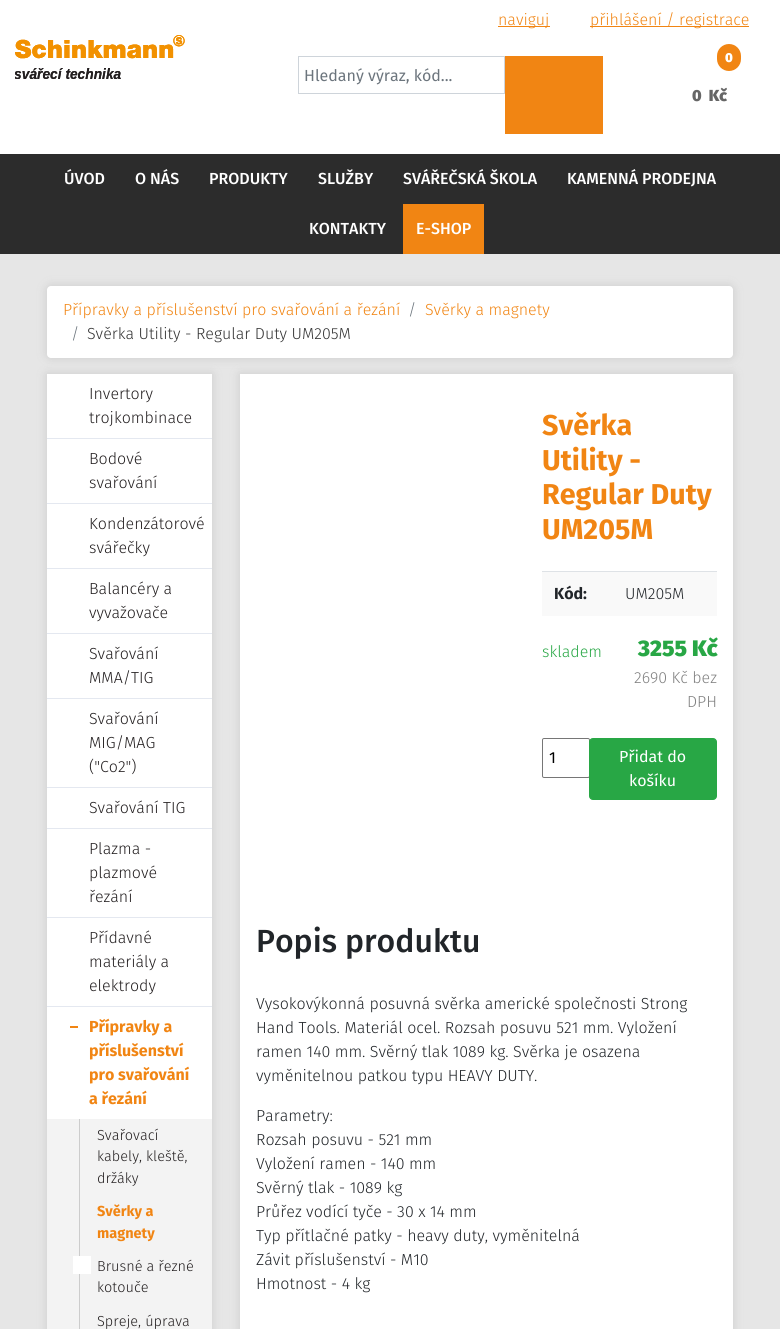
#include <cairo.h>
#include <math.h>
#include <stddef.h>

static cairo_t *c;
static void C(unsigned color){cairo_set_source_rgb(c, (color >> 16) / 255.0, (color >> 8 & 255) / 255.0, (color & 255) / 255.0);}
static void F(const char *family, double size, int italic, int bold){cairo_select_font_face(c, family, italic ? CAIRO_FONT_SLANT_ITALIC : CAIRO_FONT_SLANT_NORMAL,bold ? CAIRO_FONT_WEIGHT_BOLD : CAIRO_FONT_WEIGHT_NORMAL);cairo_set_font_size(c, size);}
static void T(double x, double y, const char *s){cairo_move_to(c, x, y);cairo_show_text(c, s);}
static void R(double x, double y, double w, double h){cairo_rectangle(c, x, y, w, h);cairo_fill(c);}
static void Q(double x, double y, double w, double h, double r){cairo_new_sub_path(c);cairo_arc(c, x + w - r, y + h - r, r, 0, M_PI / 2);cairo_arc(c, x + r, y + h - r, r, M_PI / 2, M_PI);cairo_arc(c, x + r, y + r, r, M_PI, 1.5 * M_PI);cairo_arc(c, x + w - r, y + r, r, 1.5 * M_PI, 2 * M_PI);cairo_close_path(c);}
static void S(double x, double y, double w, double h, double r, double blur, double alpha){cairo_push_group_with_content(c, CAIRO_CONTENT_ALPHA);cairo_set_operator(c, CAIRO_OPERATOR_SOURCE);for (int i = 15; i >= -15 && fmin(w, h) + blur * i / 3 > 0; i -= 2) {double e = blur * i / 6;cairo_set_source_rgba(c, 0, 0, 0, alpha * erfc((i - 1) / 8.5) / 2);Q(x - e, y - e, w + 2 * e, h + 2 * e, fmax(0, fmin(r + e + blur * .6, fmin(w, h) / 2 + e)));cairo_fill(c);}cairo_pattern_t *soft = cairo_pop_group(c);cairo_mask(c, soft);cairo_pattern_destroy(soft);}
static void I(const char *path, double x, double y, double w, double h){cairo_surface_t *image = cairo_image_surface_create_from_png(path);cairo_save(c);cairo_set_source_surface(c, image, x, y);cairo_rectangle(c, x, y, w, h);cairo_fill(c);cairo_restore(c);cairo_surface_destroy(image);}
int main(void) {
cairo_surface_t *surface = cairo_image_surface_create(CAIRO_FORMAT_RGB24, 780, 1329);
c = cairo_create(surface);
cairo_font_options_t *options = cairo_font_options_create();
cairo_font_options_set_hint_metrics(options, CAIRO_HINT_METRICS_OFF);
cairo_font_options_set_hint_style(options, CAIRO_HINT_STYLE_NONE);
cairo_set_font_options(c, options);
cairo_set_miter_limit(c, 4);
C(0xe6e6e6);
cairo_paint(c);
C(0xffffff);
R(0,0,780,154);
I("1.png",15,35,170,44);
C(0xf18513);
R(498,26,52,1);
F("Fira Sans Light",16,0,0);
T(498,25,"naviguj");
R(590,26,159,1);
T(590,25,"přihlášení / registrace");
cairo_rectangle(c,298.5,56.5,206,37);
C(0xced4da);
cairo_set_line_width(c,1);
cairo_stroke(c);
F("Fira Sans",16,0,0);
C(0x6c757d);
T(304,81,"Hledaný výraz, kód...");
C(0xf18513);
R(505,56,98,78);
Q(717,44,24,27,12);
cairo_fill(c);
F("Fira Sans Black",13,0,0);
C(0xffffff);
T(725,62,"0");
F("Fira Sans Black",16,0,0);
C(0x666666);
T(692,101,"0  Kč");
C(0x2c2c2c);
R(0,154,780,100);
F("Fira Sans Medium",16,0,0);
C(0xffffff);
T(64,184,"ÚVOD");
T(135,184,"O NÁS");
T(209,184,"PRODUKTY");
T(318,184,"SLUŽBY");
T(403,184,"SVÁŘEČSKÁ ŠKOLA");
T(567,184,"KAMENNÁ PRODEJNA");
T(309,234,"KONTAKTY");
C(0xf18513);
R(403,204,81,50);
C(0xffffff);
T(416,234,"E-SHOP");
C(0xcccccc);
S(47,286,686,72,4,5,1);
C(0xffffff);
Q(47,286,686,72,4);
cairo_fill(c);
F("Fira Sans Light",16,0,0);
C(0xf18513);
T(63,315,"Přípravky a příslušenství pro svařování a řezání");
C(0x6c757d);
T(408,315,"/");
C(0xf18513);
T(425,315,"Svěrky a magnety");
C(0x6c757d);
T(71,339,"/");
C(0x333333);
T(87,339,"Svěrka Utility - Regular Duty UM205M");
C(0xcccccc);
S(47,374,165,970,0,5,1);
C(0xffffff);
R(47,374,165,194);
C(0xe4e8f0);
R(47,438,165,1);
C(0x231f20);
T(89,399,"Invertory");
T(89,423,"trojkombinace");
C(0xe4e8f0);
R(47,503,165,1);
C(0x231f20);
T(89,464,"Bodové");
T(89,488,"svařování");
C(0xe4e8f0);
R(47,568,165,1);
C(0x231f20);
T(89,529,"Kondenzátorové");
T(89,553,"svářečky");
C(0xe4e8f0);
R(47,633,165,1);
C(0xffffff);
R(47,569,165,64);
C(0x231f20);
T(89,594,"Balancéry a");
T(89,618,"vyvažovače");
C(0xe4e8f0);
R(47,698,165,1);
C(0xffffff);
R(47,634,165,64);
C(0x231f20);
T(89,659,"Svařování");
T(89,683,"MMA/TIG");
C(0xe4e8f0);
R(47,787,165,1);
C(0xffffff);
R(47,699,165,88);
C(0x231f20);
T(89,724,"Svařování");
T(89,748,"MIG/MAG");
T(89,772,"(\"Co2\")");
C(0xe4e8f0);
R(47,828,165,1);
C(0xffffff);
R(47,788,165,40);
C(0x231f20);
T(89,813,"Svařování TIG");
C(0xe4e8f0);
R(47,917,165,1);
C(0xffffff);
R(47,829,165,88);
C(0x231f20);
T(89,854,"Plazma -");
T(89,878,"plazmové");
T(89,902,"řezání");
C(0xe4e8f0);
R(47,1006,165,1);
C(0xffffff);
R(47,918,165,88);
C(0x231f20);
T(89,943,"Přídavné");
T(89,967,"materiály a");
T(89,991,"elektrody");
C(0xf3f3f3);
R(47,1119,165,210);
C(0xffffff);
R(47,1007,165,112);
C(0xf18513);
R(70,1026,8,2);
F("Fira Sans",16,0,1);
T(89,1032,"Přípravky a");
T(89,1056,"příslušenství");
T(89,1080,"pro svařování");
T(89,1104,"a řezání");
C(0xcccccc);
R(79,1119,1,210);
F("Fira Sans Light",14.5,0,0);
C(0x231f20);
T(97,1140,"Svařovací");
T(97,1161,"kabely, kleště,");
T(97,1183,"držáky");
F("Fira Sans",14.5,0,1);
C(0xf18513);
T(97,1216,"Svěrky a");
T(97,1238,"magnety");
C(0xffffff);
R(73,1256,18,18);
F("Fira Sans Light",14.5,0,0);
C(0x231f20);
T(97,1271,"Brusné a řezné");
T(97,1292,"kotouče");
T(97,1326,"Spreje, úprava");
C(0xcccccc);
S(240,374,493,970,0,5,1);
C(0xffffff);
R(240,374,493,955);
F("Fira Sans",28.75,0,1);
C(0xf18513);
T(542,435,"Svěrka");
T(542,470,"Utility -");
T(542,504,"Regular Duty");
T(542,539,"UM205M");
C(0xf9f9f9);
R(542,572,175,44);
F("Fira Sans",16,0,1);
C(0x212529);
T(554,599,"Kód:");
C(0xdee2e6);
R(542,571,175,1);
F("Fira Sans Light",16,0,0);
C(0x212529);
T(625,599,"UM205M");
C(0x28a745);
T(542,657,"skladem");
F("Fira Sans Black",22.5,0,0);
T(638,656,"3255 Kč");
F("Fira Sans Light",16,0,0);
C(0x818181);
T(634,683,"2690 Kč bez");
T(687,707,"DPH");
Q(542.5,738.5,47,39,1.5);
C(0x767676);
cairo_stroke(c);
F("Fira Sans",16,0,0);
C(0x000000);
T(549,763,"1");
C(0x28a745);
Q(589.5,738.5,127,61,3.5);
cairo_fill_preserve(c);
cairo_stroke(c);
C(0xffffff);
T(619,762,"Přidat do");
T(629,786,"košíku");
F("Fira Sans Medium",32,0,0);
C(0x212529);
T(256,952,"Popis produktu");
F("Fira Sans Light",16,0,0);
T(256,1009,"Vysokovýkonná posuvná svěrka americké společnosti Strong");
T(256,1033,"Hand Tools. Materiál ocel. Rozsah posuvu 521 mm. Vyložení");
T(256,1057,"ramen 140 mm. Svěrný tlak 1089 kg. Svěrka je osazena");
T(256,1081,"vyměnitelnou patkou typu HEAVY DUTY.");
T(256,1121,"Parametry:");
T(256,1145,"Rozsah posuvu - 521 mm");
T(256,1169,"Vyložení ramen - 140 mm");
T(256,1193,"Svěrný tlak - 1089 kg");
T(256,1217,"Průřez vodící tyče - 30 x 14 mm");
T(256,1241,"Typ přítlačné patky - heavy duty, vyměnitelná");
T(256,1265,"Závit příslušenství - M10");
T(256,1289,"Hmotnost - 4 kg");
cairo_surface_write_to_png(surface, "o.png");
cairo_font_options_destroy(options);
cairo_destroy(c);
cairo_surface_destroy(surface);
return 0;
}
